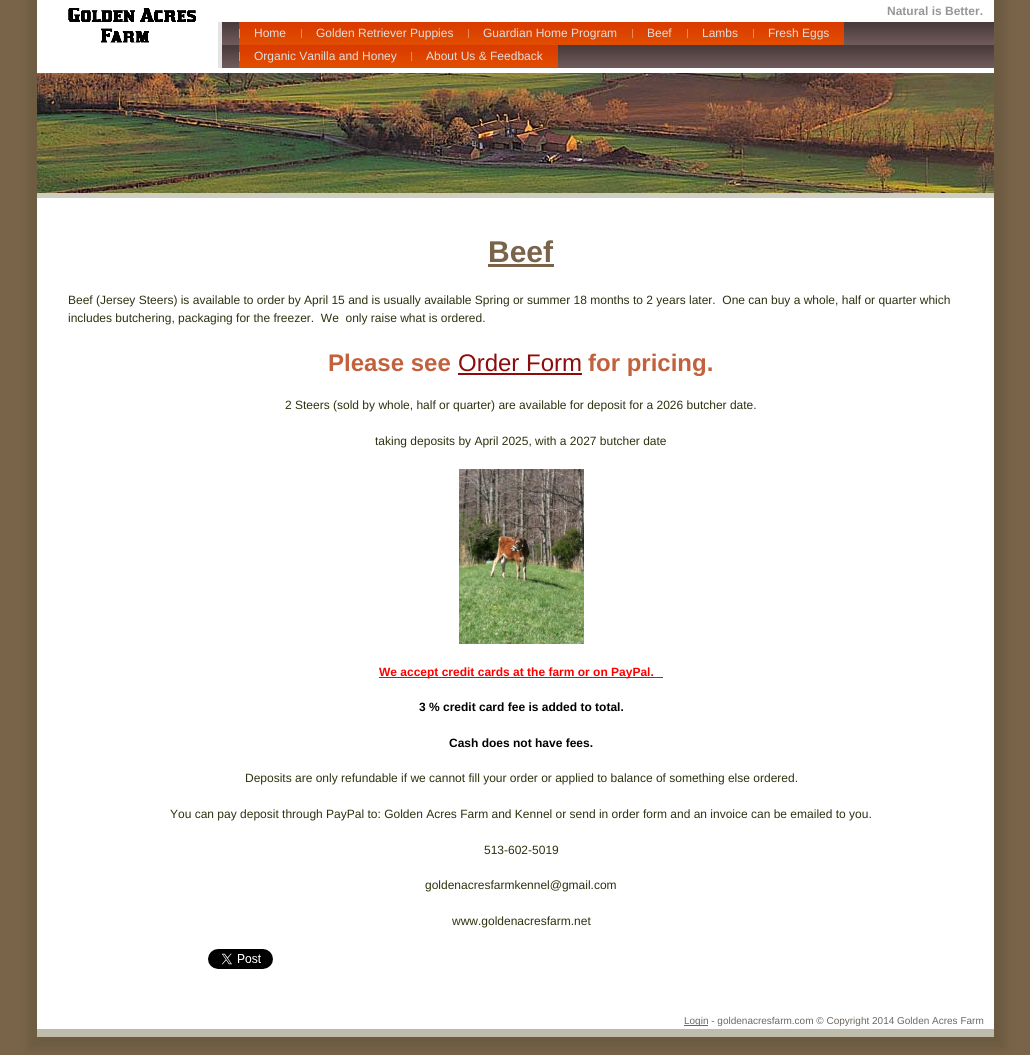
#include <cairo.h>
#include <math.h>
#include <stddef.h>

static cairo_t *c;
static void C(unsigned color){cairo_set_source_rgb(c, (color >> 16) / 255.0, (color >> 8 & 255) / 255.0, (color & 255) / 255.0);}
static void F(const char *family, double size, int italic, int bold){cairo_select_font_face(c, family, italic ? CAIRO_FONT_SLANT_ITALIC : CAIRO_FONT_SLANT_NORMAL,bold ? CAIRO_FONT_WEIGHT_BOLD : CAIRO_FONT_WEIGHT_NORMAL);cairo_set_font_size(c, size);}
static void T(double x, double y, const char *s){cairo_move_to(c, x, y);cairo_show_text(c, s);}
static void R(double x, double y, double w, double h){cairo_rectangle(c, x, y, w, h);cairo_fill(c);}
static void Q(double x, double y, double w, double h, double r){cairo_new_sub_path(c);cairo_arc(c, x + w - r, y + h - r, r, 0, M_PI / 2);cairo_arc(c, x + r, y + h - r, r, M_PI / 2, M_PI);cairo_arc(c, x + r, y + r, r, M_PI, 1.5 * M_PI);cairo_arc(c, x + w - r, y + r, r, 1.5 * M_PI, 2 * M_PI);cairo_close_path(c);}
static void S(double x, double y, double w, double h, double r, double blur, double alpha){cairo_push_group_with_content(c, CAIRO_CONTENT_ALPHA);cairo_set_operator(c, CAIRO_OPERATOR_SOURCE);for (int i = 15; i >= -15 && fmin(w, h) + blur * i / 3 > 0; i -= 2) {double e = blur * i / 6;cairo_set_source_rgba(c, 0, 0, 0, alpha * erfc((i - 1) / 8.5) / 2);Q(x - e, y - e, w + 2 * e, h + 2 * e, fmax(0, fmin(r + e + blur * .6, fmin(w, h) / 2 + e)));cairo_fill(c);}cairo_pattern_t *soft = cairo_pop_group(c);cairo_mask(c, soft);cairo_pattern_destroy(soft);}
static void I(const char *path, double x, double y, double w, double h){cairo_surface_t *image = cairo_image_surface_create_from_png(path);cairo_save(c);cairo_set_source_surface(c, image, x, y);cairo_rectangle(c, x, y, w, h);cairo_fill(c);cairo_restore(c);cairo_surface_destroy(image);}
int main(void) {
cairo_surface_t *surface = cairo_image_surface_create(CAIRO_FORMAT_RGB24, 1030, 1055);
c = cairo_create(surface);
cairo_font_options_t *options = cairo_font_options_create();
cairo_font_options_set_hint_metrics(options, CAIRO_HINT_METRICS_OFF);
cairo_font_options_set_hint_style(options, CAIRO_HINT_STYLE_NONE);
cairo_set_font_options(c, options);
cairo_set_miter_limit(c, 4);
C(0x796449);
cairo_paint(c);
C(0x6c5a41);
S(29,-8,977,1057,0,5,1);
C(0xffffff);
R(37,0,957,1029);
I("1.png",68,8,128,35);
I("2.png",222,22,772,46);
C(0xe4e4e4);
R(218,22,4,46);
I("3.png",239,22,62,23);
F("Liberation Sans",12,0,0);
C(0xe2dede);
T(254,37,"Home");
I("4.png",301,22,167,23);
T(316,37,"Golden Retriever Puppies");
I("5.png",468,22,164,23);
T(483,37,"Guardian Home Program");
I("6.png",632,22,55,23);
T(647,37,"Beef");
I("7.png",687,22,66,23);
T(702,37,"Lambs");
I("8.png",753,22,91,23);
T(768,37,"Fresh Eggs");
I("9.png",239,45,172,23);
T(254,60,"Organic Vanilla and Honey");
I("10.png",411,45,147,23);
T(426,60,"About Us & Feedback");
F("Liberation Sans",12,0,1);
C(0x969696);
T(887,15,"Natural is Better.");
I("11.png",37,73,957,120);
C(0xcecdbf);
R(37,193,957,5);
F("Liberation Sans",30,0,1);
C(0x796449);
T(488,262,"Beef");
R(488,264,66,3);
F("Liberation Sans",12,0,0);
C(0x2c320e);
T(68,304,"Beef (Jersey Steers) is available to order by April 15 and is usually available Spring or summer 18 months to 2 years later.  One can buy a whole, half or quarter which");
T(68,322,"includes butchering, packaging for the freezer.  We  only raise what is ordered.");
F("Liberation Sans",24,0,1);
C(0xc2613d);
T(328,371,"Please see");
F("Liberation Sans",24,0,0);
C(0x8e0b0b);
T(458,371,"Order Form");
R(458,373,124,2);
F("Liberation Sans",24,0,1);
C(0xc2613d);
T(588,371,"for pricing.");
F("Liberation Sans",12,0,0);
C(0x2c320e);
T(285,409,"2 Steers (sold by whole, half or quarter) are available for deposit for a 2026 butcher date.");
T(375,445,"taking deposits by April 2025, with a 2027 butcher date");
I("12.png",459,469,125,175);
C(0xff0000);
R(379,677,284,1);
F("Liberation Sans",12,0,1);
T(379,676,"We accept credit cards at the farm or on PayPal.");
C(0x000000);
T(419,711,"3 % credit card fee is added to total.");
T(449,747,"Cash does not have fees.");
F("Liberation Sans",12,0,0);
C(0x2c320e);
T(245,782,"Deposits are only refundable if we cannot fill your order or applied to balance of something else ordered.");
T(170,818,"You can pay deposit through PayPal to: Golden Acres Farm and Kennel or send in order form and an invoice can be emailed to you.");
T(484,854,"513-602-5019");
T(425,889,"goldenacresfarmkennel@gmail.com");
T(452,925,"www.goldenacresfarm.net");
I("13.png",208,949,65,20);
C(0x6b6762);
R(684,1025,24,1);
F("Liberation Sans",10,0,0);
T(684,1024,"Login - goldenacresfarm.com © Copyright 2014 Golden Acres Farm");
C(0xbebdab);
R(37,1029,957,8);
cairo_surface_write_to_png(surface, "o.png");
cairo_font_options_destroy(options);
cairo_destroy(c);
cairo_surface_destroy(surface);
return 0;
}
